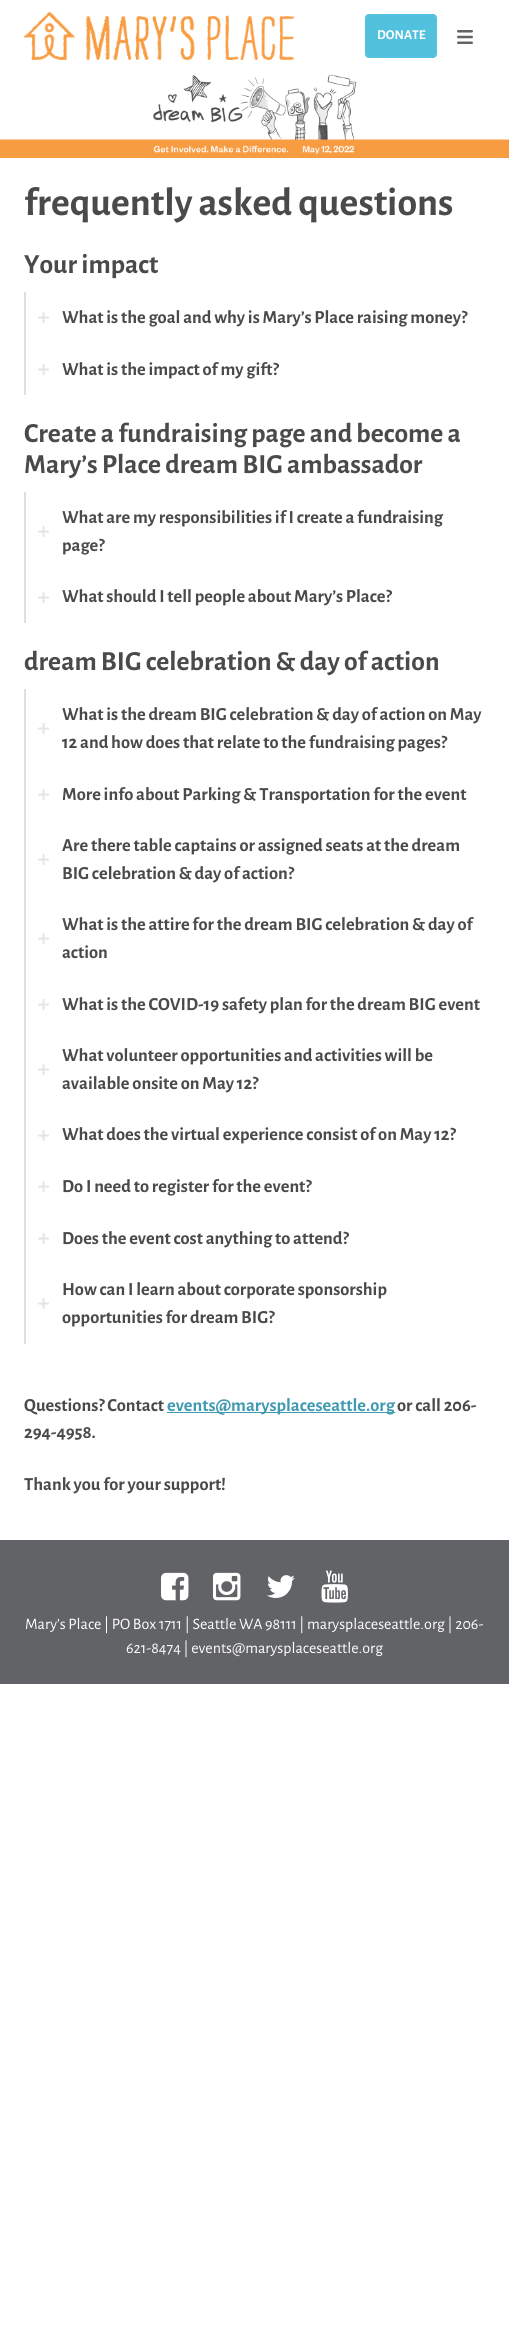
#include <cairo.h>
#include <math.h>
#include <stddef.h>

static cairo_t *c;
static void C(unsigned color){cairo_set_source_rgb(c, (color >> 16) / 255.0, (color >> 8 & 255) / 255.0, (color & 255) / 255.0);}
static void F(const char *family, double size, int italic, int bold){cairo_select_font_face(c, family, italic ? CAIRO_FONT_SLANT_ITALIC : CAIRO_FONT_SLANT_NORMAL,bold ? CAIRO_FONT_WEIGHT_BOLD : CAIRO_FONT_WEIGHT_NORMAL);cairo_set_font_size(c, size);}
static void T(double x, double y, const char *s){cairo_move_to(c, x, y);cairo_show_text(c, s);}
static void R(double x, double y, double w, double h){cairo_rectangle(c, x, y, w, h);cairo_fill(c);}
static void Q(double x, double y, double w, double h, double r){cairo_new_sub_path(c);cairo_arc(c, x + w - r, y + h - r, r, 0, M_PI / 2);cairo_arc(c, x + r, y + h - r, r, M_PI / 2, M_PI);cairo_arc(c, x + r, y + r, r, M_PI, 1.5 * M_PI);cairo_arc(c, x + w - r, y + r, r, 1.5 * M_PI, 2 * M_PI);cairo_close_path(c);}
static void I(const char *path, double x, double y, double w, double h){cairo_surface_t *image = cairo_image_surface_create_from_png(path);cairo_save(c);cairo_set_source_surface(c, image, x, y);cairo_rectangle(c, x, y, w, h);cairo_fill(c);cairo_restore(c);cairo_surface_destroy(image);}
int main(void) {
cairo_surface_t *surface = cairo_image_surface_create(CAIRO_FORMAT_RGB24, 509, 2346);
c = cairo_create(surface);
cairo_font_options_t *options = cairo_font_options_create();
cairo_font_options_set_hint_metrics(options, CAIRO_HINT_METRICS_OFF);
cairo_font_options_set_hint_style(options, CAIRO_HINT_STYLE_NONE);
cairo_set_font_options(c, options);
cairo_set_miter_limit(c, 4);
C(0xffffff);
cairo_paint(c);
I("1.png",24,12,270,48);
C(0x51c1de);
Q(365,14,72,44,4);
cairo_fill(c);
F("Alegreya Sans",13.5,0,1);
C(0xffffff);
T(377,39,"DONATE");
I("2.png",457,30,16,14);
I("3.png",0,74,509,84);
F("Alegreya Sans",39.75,0,1);
C(0x4a4a4a);
T(24,215,"frequently asked questions");
F("Alegreya Sans",27.6,0,1);
T(24,273,"Your impact");
C(0xdfdfdf);
R(24,292,2,103);
I("4.png",38,312,11,11);
F("Alegreya Sans",18.4,0,1);
C(0x4a4a4a);
T(62,323,"What is the goal and why is Mary’s Place raising money?");
I("4.png",38,364,11,11);
T(62,375,"What is the impact of my gift?");
F("Alegreya Sans",27.6,0,1);
T(24,442,"Create a fundraising page and become a");
T(24,473,"Mary’s Place dream BIG ambassador");
C(0xdfdfdf);
R(24,492,2,131);
I("4.png",38,526,11,11);
F("Alegreya Sans",18.4,0,1);
C(0x4a4a4a);
T(62,523,"What are my responsibilities if I create a fundraising");
T(62,551,"page?");
I("4.png",38,592,11,11);
T(62,602,"What should I tell people about Mary’s Place?");
F("Alegreya Sans",27.6,0,1);
T(24,670,"dream BIG celebration & day of action");
C(0xdfdfdf);
R(24,689,2,655);
I("4.png",38,723,11,11);
F("Alegreya Sans",18.4,0,1);
C(0x4a4a4a);
T(62,720,"What is the dream BIG celebration & day of action on May");
T(62,748,"12 and how does that relate to the fundraising pages?");
I("4.png",38,789,11,11);
T(62,800,"More info about Parking & Transportation for the event");
I("4.png",38,854,11,11);
T(62,851,"Are there table captains or assigned seats at the dream");
T(62,879,"BIG celebration & day of action?");
I("4.png",38,933,11,11);
T(62,930,"What is the attire for the dream BIG celebration & day of");
T(62,958,"action");
I("4.png",38,999,11,11);
T(62,1010,"What is the COVID-19 safety plan for the dream BIG event");
I("4.png",38,1064,11,11);
T(62,1061,"What volunteer opportunities and activities will be");
T(62,1089,"available onsite on May 12?");
I("4.png",38,1130,11,11);
T(62,1140,"What does the virtual experience consist of on May 12?");
I("4.png",38,1181,11,11);
T(62,1192,"Do I need to register for the event?");
I("4.png",38,1233,11,11);
T(62,1244,"Does the event cost anything to attend?");
I("4.png",38,1298,11,11);
T(62,1295,"How can I learn about corporate sponsorship");
T(62,1323,"opportunities for dream BIG?");
T(24,1411,"Questions? Contact");
C(0x409ab1);
R(167,1412,228,1);
T(167,1411,"events@marysplaceseattle.org");
C(0x4a4a4a);
T(397,1411,"or call 206-");
T(24,1438,"294-4958.");
T(24,1490,"Thank you for your support!");
C(0x626366);
R(0,1540,509,144);
I("5.png",161,1572,28,29);
I("6.png",213,1572,28,29);
I("7.png",267,1575,28,23);
I("8.png",321,1570,27,33);
F("Alegreya Sans",16,0,0);
C(0xffffff);
T(25,1629,"Mary’s Place | PO Box 1711 | Seattle WA 98111 | marysplaceseattle.org | 206-");
T(126,1653,"621-8474 | events@marysplaceseattle.org");
cairo_surface_write_to_png(surface, "o.png");
cairo_font_options_destroy(options);
cairo_destroy(c);
cairo_surface_destroy(surface);
return 0;
}
